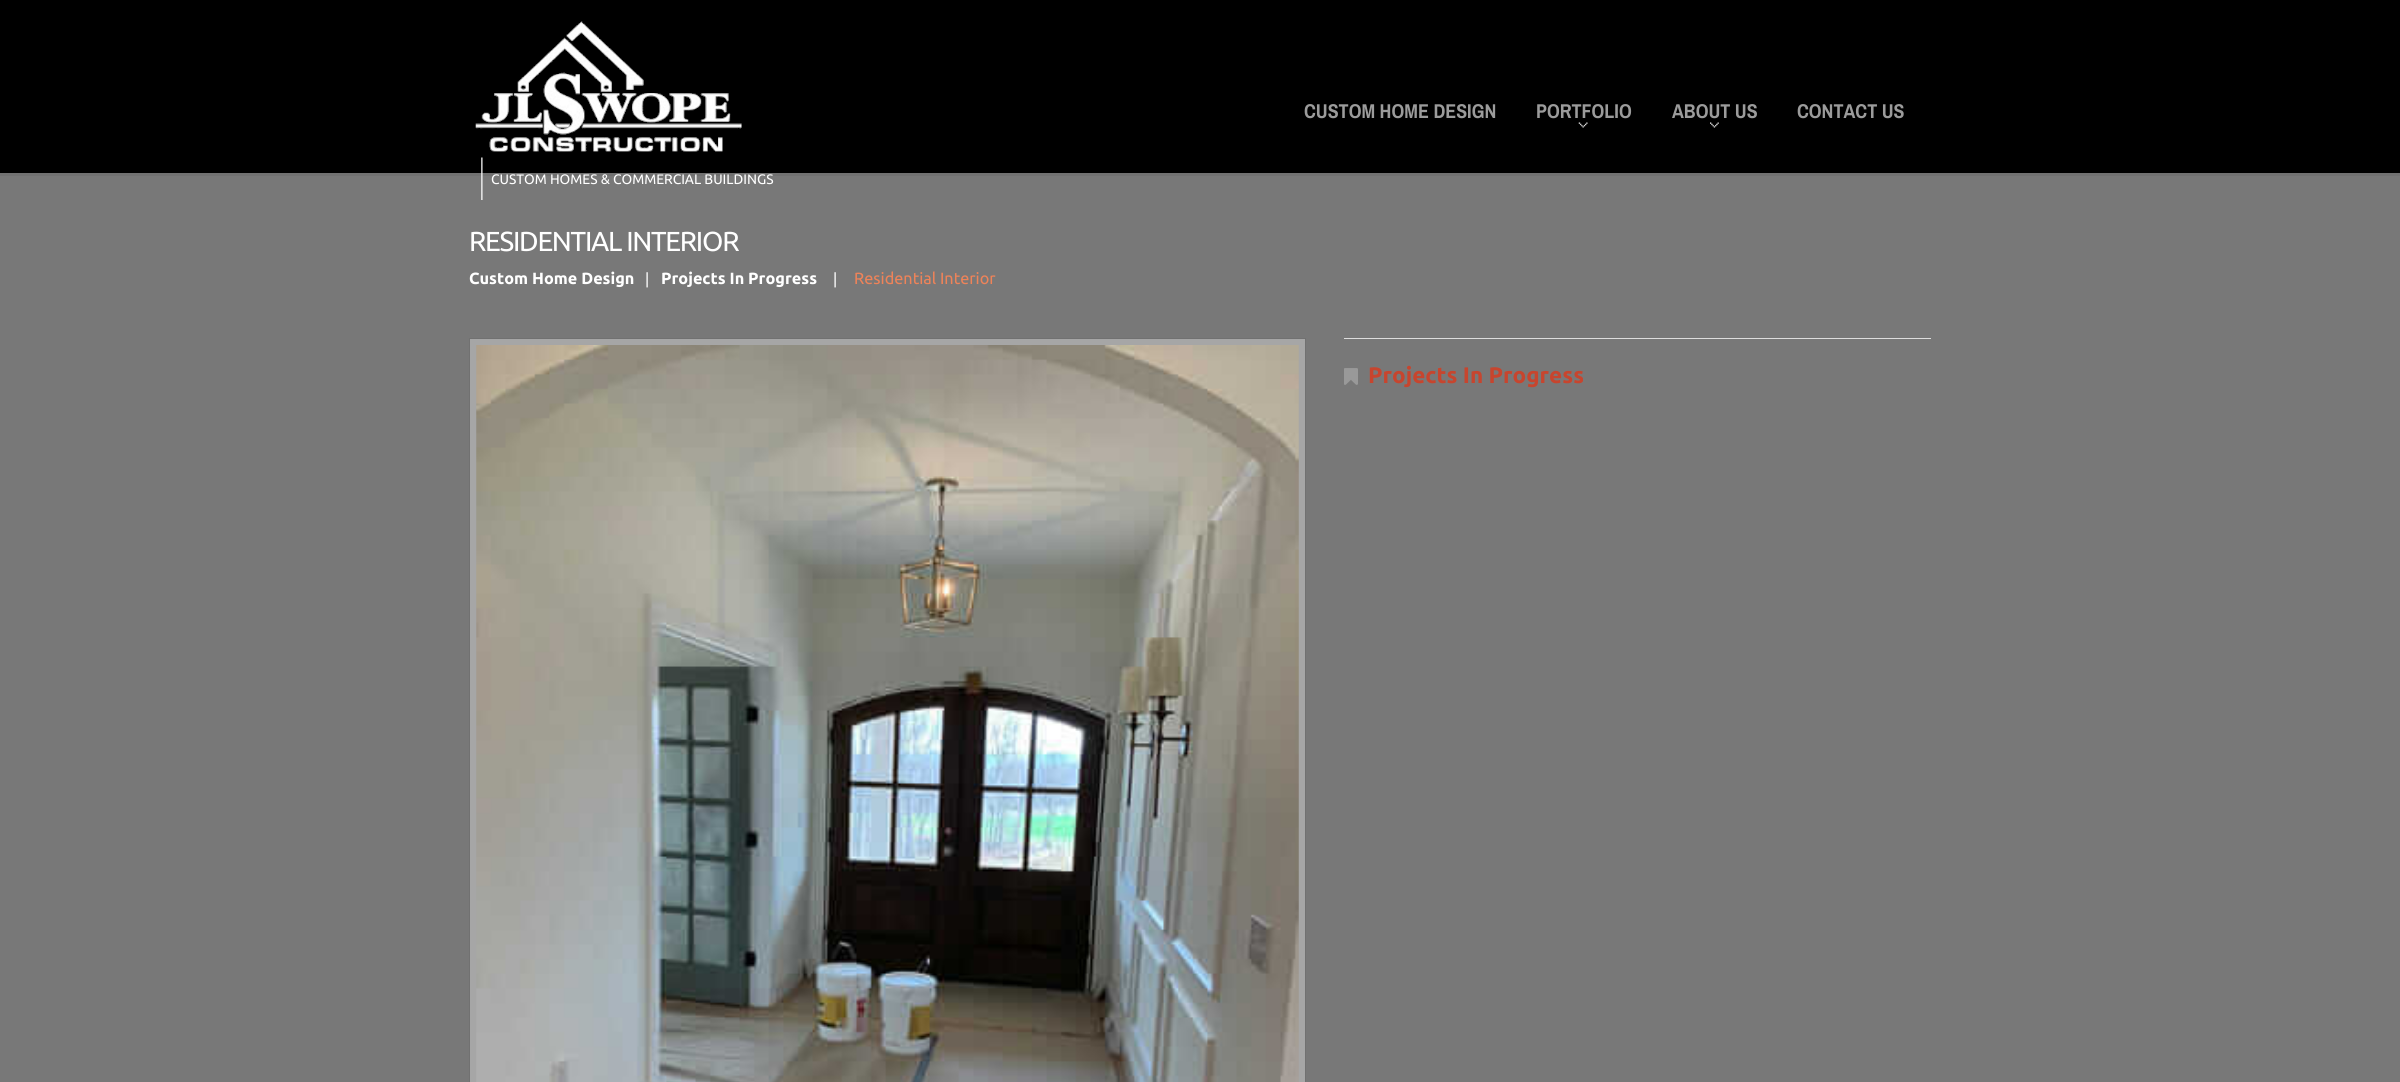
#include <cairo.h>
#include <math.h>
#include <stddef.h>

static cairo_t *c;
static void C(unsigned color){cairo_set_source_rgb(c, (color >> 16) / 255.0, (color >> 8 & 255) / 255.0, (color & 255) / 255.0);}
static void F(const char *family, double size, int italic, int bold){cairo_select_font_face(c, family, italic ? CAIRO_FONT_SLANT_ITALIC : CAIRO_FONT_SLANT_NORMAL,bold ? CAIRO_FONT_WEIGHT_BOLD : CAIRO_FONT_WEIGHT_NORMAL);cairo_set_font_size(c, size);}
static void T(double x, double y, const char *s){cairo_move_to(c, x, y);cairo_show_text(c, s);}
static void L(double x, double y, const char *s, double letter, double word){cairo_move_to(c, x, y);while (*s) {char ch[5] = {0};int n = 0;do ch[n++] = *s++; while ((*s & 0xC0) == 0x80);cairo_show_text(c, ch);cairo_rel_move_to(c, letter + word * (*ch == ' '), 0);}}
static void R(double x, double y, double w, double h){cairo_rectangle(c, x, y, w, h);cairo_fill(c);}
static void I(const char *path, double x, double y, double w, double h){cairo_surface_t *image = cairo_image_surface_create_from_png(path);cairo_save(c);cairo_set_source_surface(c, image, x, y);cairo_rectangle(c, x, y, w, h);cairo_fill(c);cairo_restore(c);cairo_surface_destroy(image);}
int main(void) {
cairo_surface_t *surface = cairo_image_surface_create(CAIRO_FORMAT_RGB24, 2400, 1082);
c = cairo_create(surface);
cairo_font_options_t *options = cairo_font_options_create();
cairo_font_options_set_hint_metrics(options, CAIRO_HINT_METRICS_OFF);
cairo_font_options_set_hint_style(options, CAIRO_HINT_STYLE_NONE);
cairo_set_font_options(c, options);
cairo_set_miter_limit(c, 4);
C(0x787878);
cairo_paint(c);
C(0x000000);
R(0,0,2400,173);
F("Archivo Narrow",20,0,1);
C(0x9b9b9b);
T(1304,118,"CUSTOM HOME DESIGN");
T(1536,118,"PORTFOLIO");
I("1.png",1578,122,10,6);
T(1672,118,"ABOUT US");
I("2.png",1710,122,9,6);
T(1797,118,"CONTACT US");
I("3.png",475,21,267,131);
C(0x717171);
R(0,173,2400,3);
I("4.png",481,157,2,43);
F("Ubuntu",13.75,0,0);
C(0xffffff);
T(491,184,"CUSTOM HOMES & COMMERCIAL BUILDINGS");
F("Ubuntu",27.5,0,0);
L(469,251,"RESIDENTIAL INTERIOR",-1.25,0);
F("Ubuntu",16.25,0,1);
T(469,284,"Custom Home Design");
F("Liberation Sans",16.25,0,0);
T(645,284,"|");
F("Ubuntu",16.25,0,1);
T(661,284,"Projects In Progress");
F("Liberation Sans",16.25,0,0);
T(833,284,"|");
F("Ubuntu",16.25,0,0);
C(0xee8359);
T(854,284,"Residential Interior");
C(0xa6a6a6);
cairo_rectangle(c,469.5,338.5,836,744);
cairo_fill_preserve(c);
C(0x717171);
cairo_set_line_width(c,1);
cairo_stroke(c);
I("5.png",476,345,823,737);
C(0xdddddd);
R(1344,338,587,1);
I("6.png",1344,368,14,17);
F("Ubuntu",22.5,0,1);
C(0xc7452e);
T(1368,383,"Projects In Progress");
cairo_surface_write_to_png(surface, "o.png");
cairo_font_options_destroy(options);
cairo_destroy(c);
cairo_surface_destroy(surface);
return 0;
}
